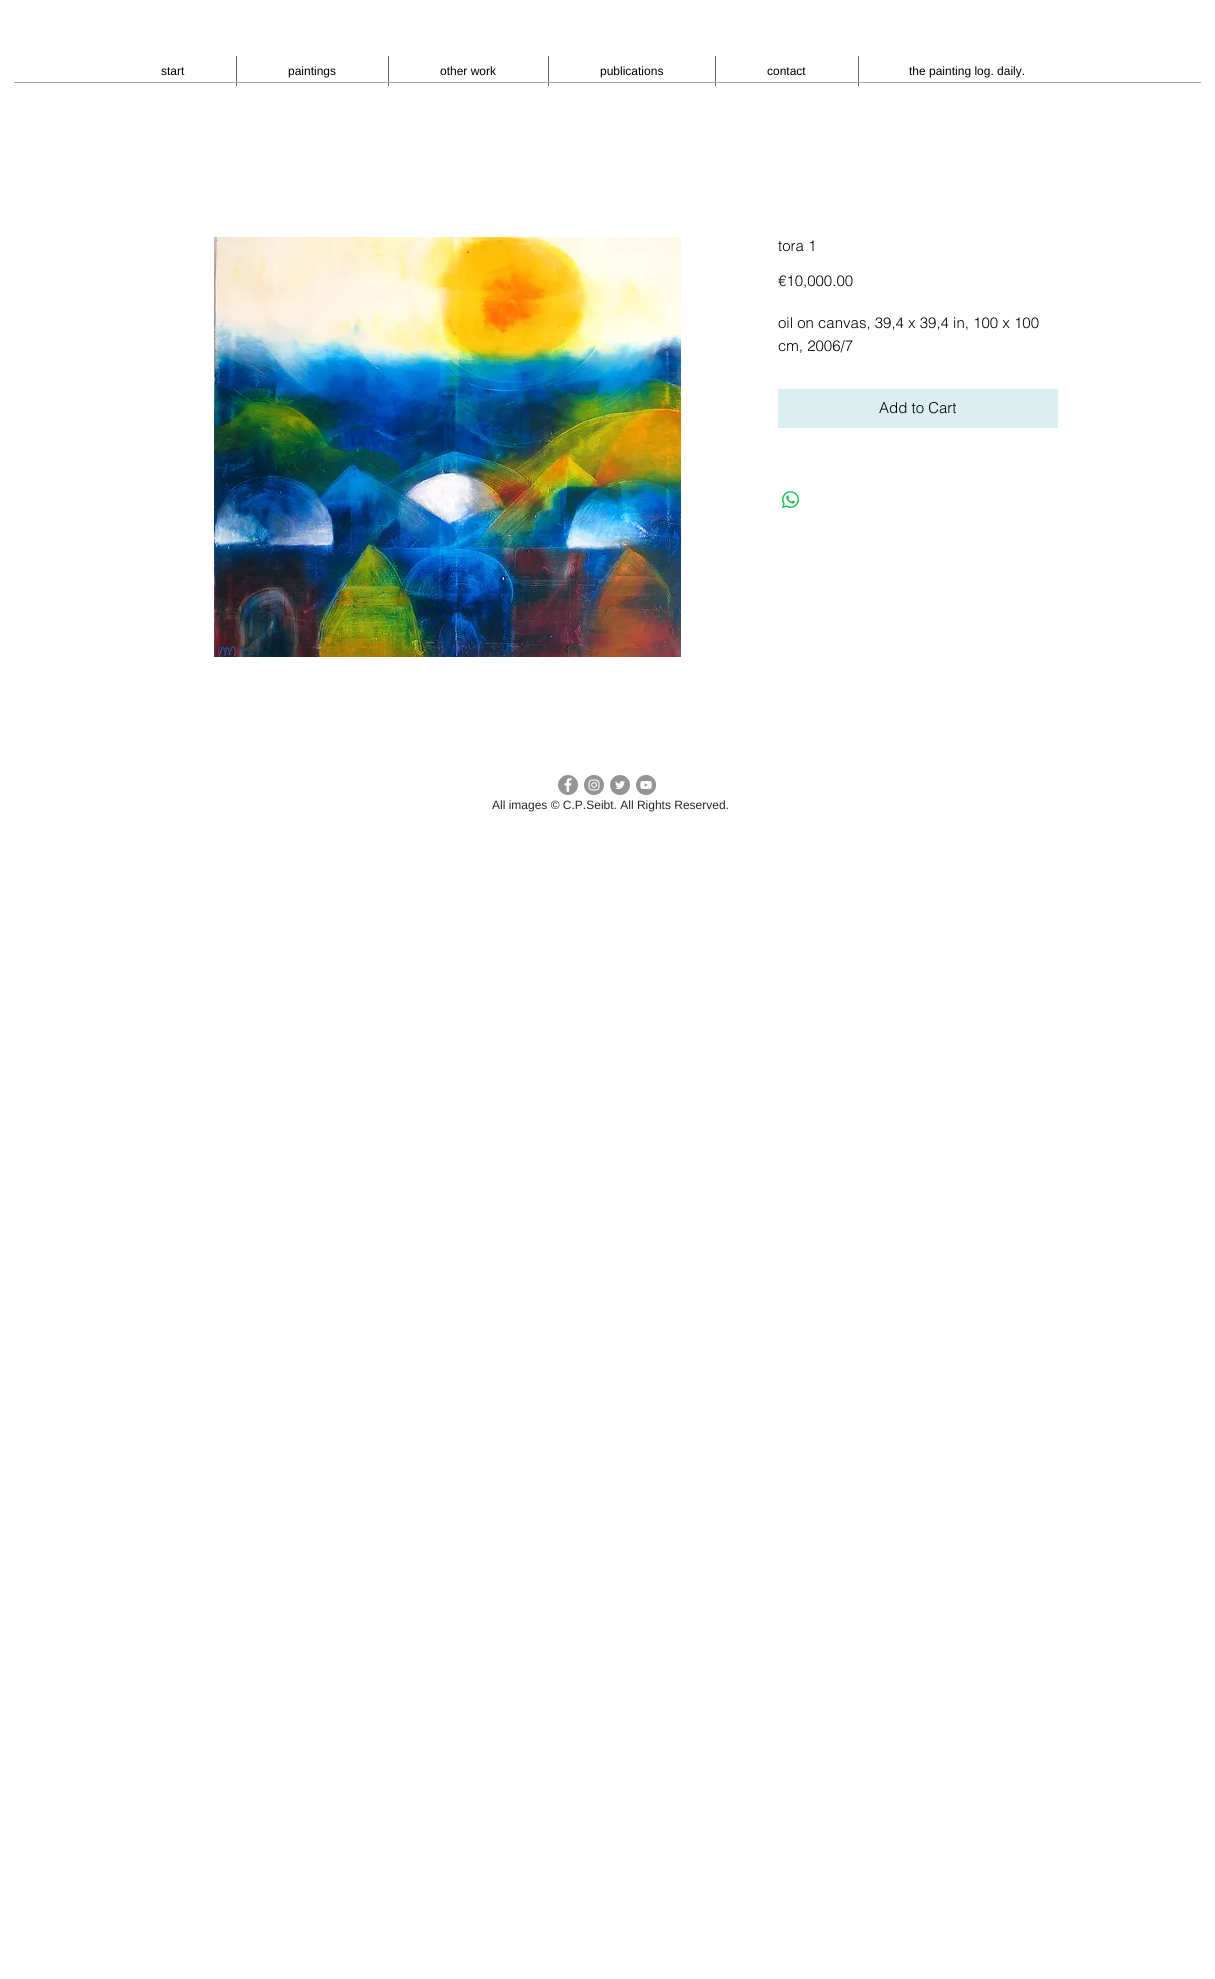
#include <cairo.h>
#include <math.h>
#include <stddef.h>

static cairo_t *c;
static void C(unsigned color){cairo_set_source_rgb(c, (color >> 16) / 255.0, (color >> 8 & 255) / 255.0, (color & 255) / 255.0);}
static void F(const char *family, double size, int italic, int bold){cairo_select_font_face(c, family, italic ? CAIRO_FONT_SLANT_ITALIC : CAIRO_FONT_SLANT_NORMAL,bold ? CAIRO_FONT_WEIGHT_BOLD : CAIRO_FONT_WEIGHT_NORMAL);cairo_set_font_size(c, size);}
static void T(double x, double y, const char *s){cairo_move_to(c, x, y);cairo_show_text(c, s);}
static void R(double x, double y, double w, double h){cairo_rectangle(c, x, y, w, h);cairo_fill(c);}
static void I(const char *path, double x, double y, double w, double h){cairo_surface_t *image = cairo_image_surface_create_from_png(path);cairo_save(c);cairo_set_source_surface(c, image, x, y);cairo_rectangle(c, x, y, w, h);cairo_fill(c);cairo_restore(c);cairo_surface_destroy(image);}
int main(void) {
cairo_surface_t *surface = cairo_image_surface_create(CAIRO_FORMAT_RGB24, 1215, 1979);
c = cairo_create(surface);
cairo_font_options_t *options = cairo_font_options_create();
cairo_font_options_set_hint_metrics(options, CAIRO_HINT_METRICS_OFF);
cairo_font_options_set_hint_style(options, CAIRO_HINT_STYLE_NONE);
cairo_set_font_options(c, options);
cairo_set_miter_limit(c, 4);
C(0xffffff);
cairo_paint(c);
F("Liberation Sans",12,0,0);
C(0x000000);
T(161,75,"start");
C(0x666666);
R(236,56,1,30);
C(0x000000);
T(288,75,"paintings");
C(0x666666);
R(388,56,1,30);
C(0x000000);
T(440,75,"other work");
C(0x666666);
R(548,56,1,30);
C(0x000000);
T(600,75,"publications");
C(0x666666);
R(715,56,1,30);
C(0x000000);
T(767,75,"contact");
C(0x666666);
R(858,56,1,30);
C(0x000000);
T(909,75,"the painting log. daily.");
C(0xa6a6a6);
R(14,82,1187,1);
I("1.png",214,237,467,420);
F("helvetica Light",15,0,0);
C(0x000000);
T(778,251,"tora 1");
T(778,286,"€10,000.00");
T(778,328,"oil on canvas, 39,4 x 39,4 in, 100 x 100");
T(778,351,"cm, 2006/7");
C(0xdbeef0);
R(778,389,280,39);
C(0x000000);
T(879,413,"Add to Cart");
I("2.png",782,491,17,17);
I("3.png",558,775,20,20);
I("4.png",584,775,20,20);
I("5.png",610,775,20,20);
I("6.png",636,775,20,20);
F("Liberation Sans",12,0,0);
C(0x272727);
T(492,809,"All images © C.P.Seibt. All Rights Reserved.");
cairo_surface_write_to_png(surface, "o.png");
cairo_font_options_destroy(options);
cairo_destroy(c);
cairo_surface_destroy(surface);
return 0;
}
